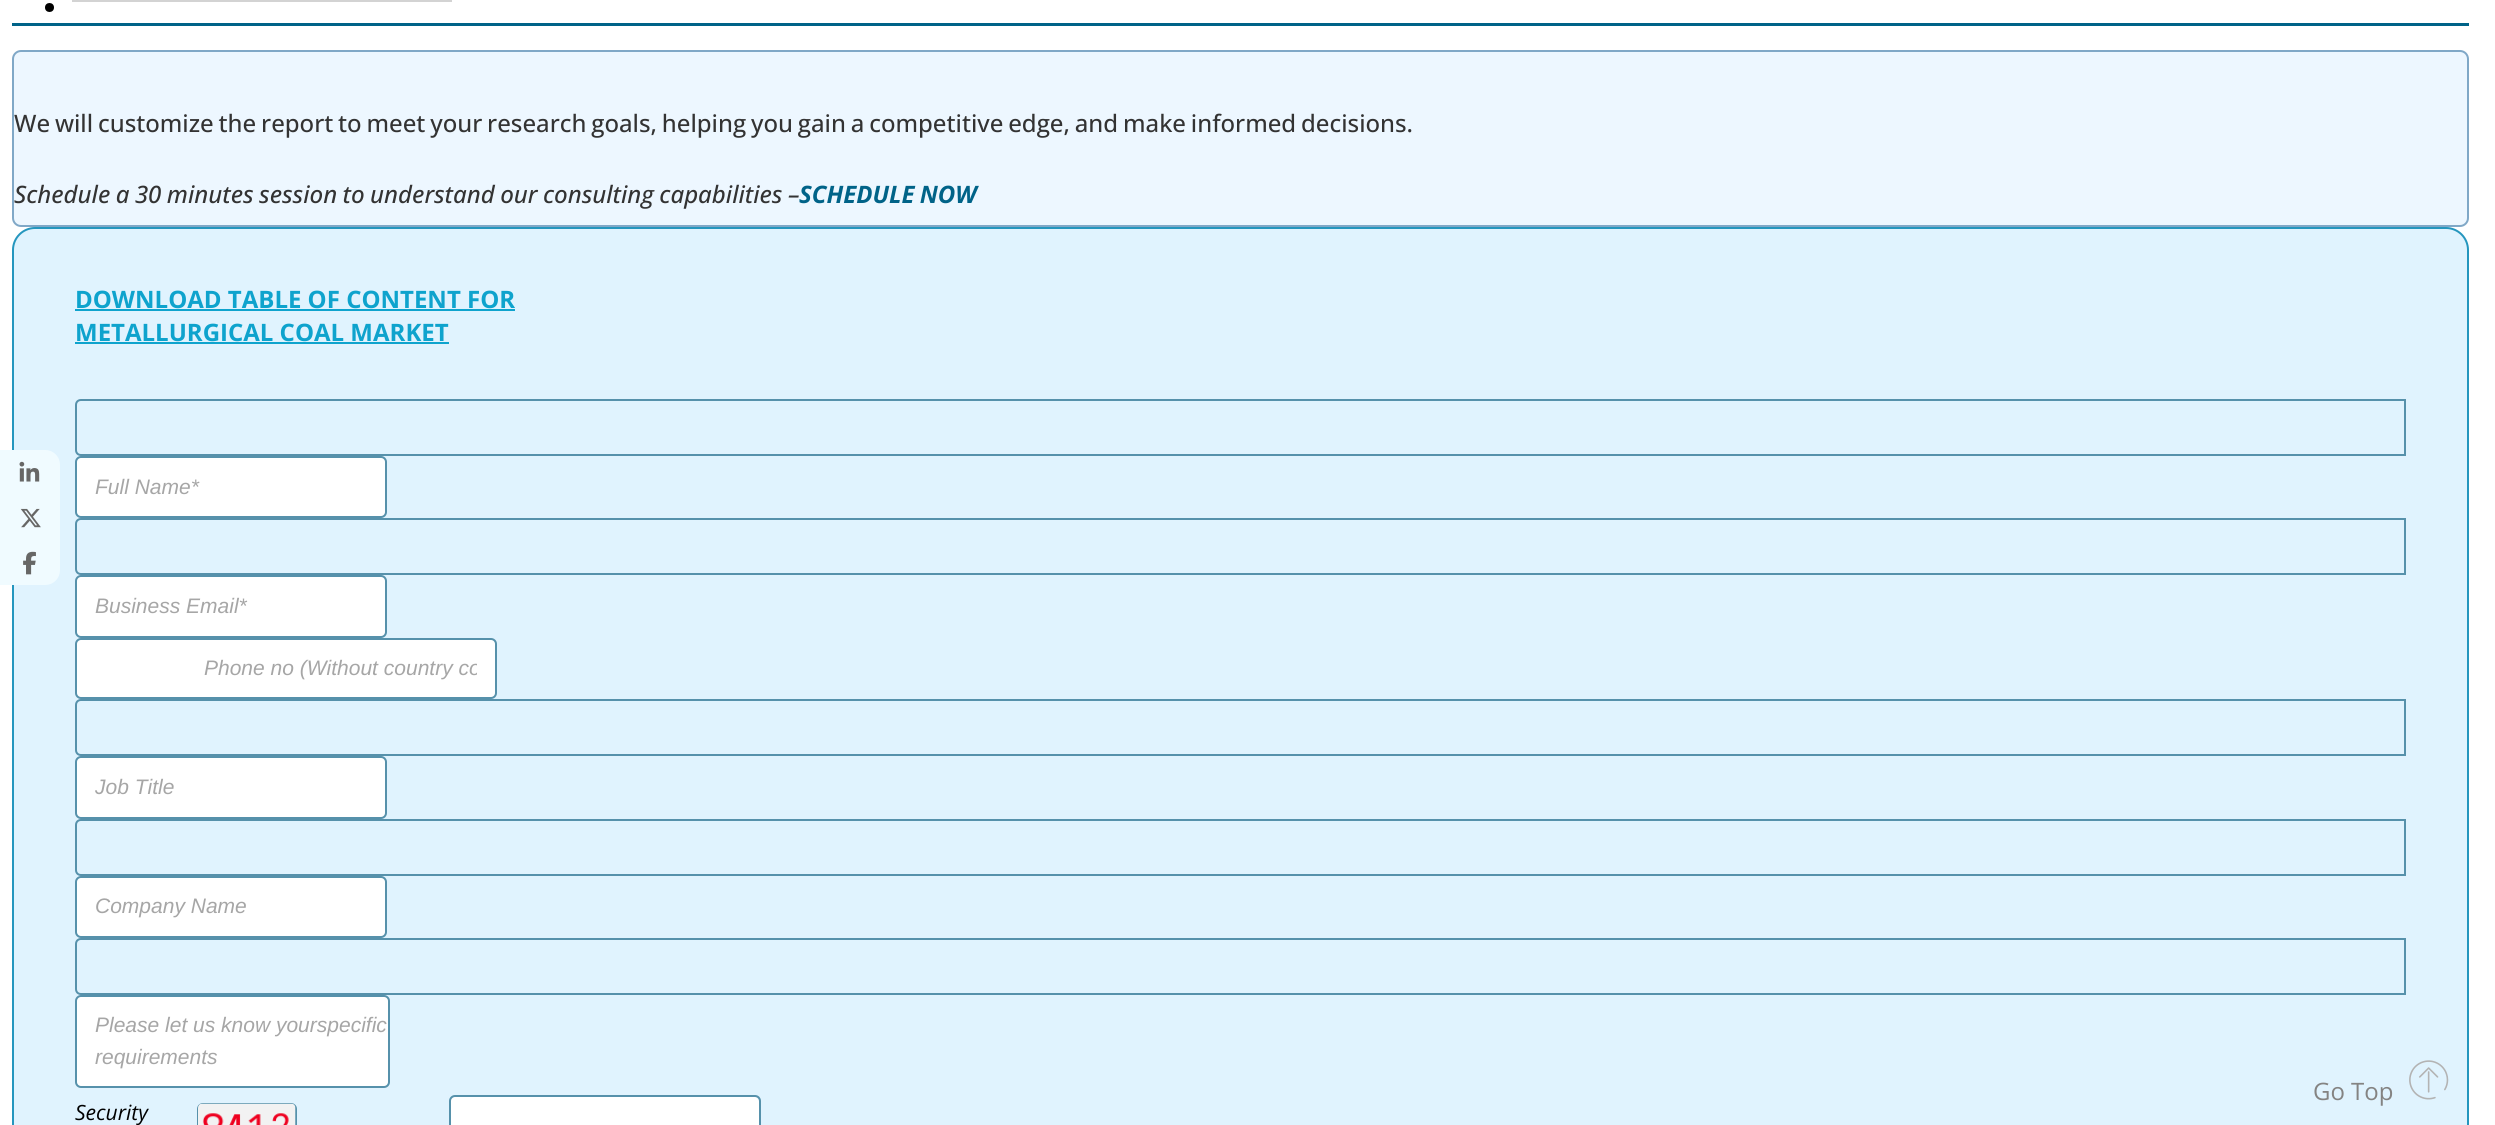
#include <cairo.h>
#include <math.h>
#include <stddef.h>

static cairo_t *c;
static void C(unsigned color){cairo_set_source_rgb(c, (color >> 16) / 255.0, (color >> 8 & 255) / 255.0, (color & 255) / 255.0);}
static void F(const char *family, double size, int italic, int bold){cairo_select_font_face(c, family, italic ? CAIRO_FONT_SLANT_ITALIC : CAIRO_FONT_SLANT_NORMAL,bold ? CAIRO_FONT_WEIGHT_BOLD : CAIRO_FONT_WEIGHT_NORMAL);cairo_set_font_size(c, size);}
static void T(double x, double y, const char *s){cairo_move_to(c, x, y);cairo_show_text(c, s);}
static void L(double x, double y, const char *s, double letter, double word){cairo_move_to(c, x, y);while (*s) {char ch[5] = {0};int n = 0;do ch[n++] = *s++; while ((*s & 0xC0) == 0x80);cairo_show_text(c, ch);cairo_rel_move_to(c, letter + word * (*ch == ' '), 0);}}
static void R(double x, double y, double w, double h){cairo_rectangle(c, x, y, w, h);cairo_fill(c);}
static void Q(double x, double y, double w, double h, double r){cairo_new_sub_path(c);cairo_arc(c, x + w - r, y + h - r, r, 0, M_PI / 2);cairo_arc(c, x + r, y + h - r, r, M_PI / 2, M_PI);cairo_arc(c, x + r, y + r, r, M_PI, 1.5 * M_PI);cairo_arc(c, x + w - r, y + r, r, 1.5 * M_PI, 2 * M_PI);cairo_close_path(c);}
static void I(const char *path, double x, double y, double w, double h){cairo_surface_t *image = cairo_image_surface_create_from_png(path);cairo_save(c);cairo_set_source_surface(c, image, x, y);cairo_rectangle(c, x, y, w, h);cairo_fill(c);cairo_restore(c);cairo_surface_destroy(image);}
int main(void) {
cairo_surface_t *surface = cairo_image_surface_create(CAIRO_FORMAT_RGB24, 2495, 1125);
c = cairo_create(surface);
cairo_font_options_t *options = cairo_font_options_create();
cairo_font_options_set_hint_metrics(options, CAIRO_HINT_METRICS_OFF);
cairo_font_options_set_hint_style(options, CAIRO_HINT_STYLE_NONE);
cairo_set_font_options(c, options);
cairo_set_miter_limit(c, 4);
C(0xffffff);
cairo_paint(c);
C(0x006388);
R(12,23,2457,3);
C(0xd3d3d3);
cairo_set_fill_rule(c,CAIRO_FILL_RULE_EVEN_ODD);
cairo_new_path(c);
cairo_move_to(c,80,-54);
cairo_line_to(c,207,-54);
cairo_line_to(c,207,2);
cairo_line_to(c,72,2);
cairo_line_to(c,72,-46);
cairo_curve_to(c,72,-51,75,-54,80,-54);
cairo_close_path(c);
cairo_move_to(c,80,-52);
cairo_line_to(c,207,-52);
cairo_line_to(c,207,0);
cairo_line_to(c,74,0);
cairo_line_to(c,74,-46);
cairo_curve_to(c,74,-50,76,-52,80,-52);
cairo_close_path(c);
cairo_fill(c);
cairo_new_path(c);
cairo_move_to(c,207,-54);
cairo_line_to(c,444,-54);
cairo_curve_to(c,448,-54,452,-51,452,-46);
cairo_line_to(c,452,2);
cairo_line_to(c,207,2);
cairo_close_path(c);
cairo_move_to(c,207,-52);
cairo_line_to(c,444,-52);
cairo_curve_to(c,447,-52,450,-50,450,-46);
cairo_line_to(c,450,0);
cairo_line_to(c,207,0);
cairo_close_path(c);
cairo_fill(c);
C(0x000000);
cairo_arc(c,49.5,7.5,4.5,0,2 * M_PI);
cairo_fill(c);
C(0xedf7ff);
Q(13,51,2455,175,8);
cairo_fill_preserve(c);
C(0x80a8c7);
cairo_stroke(c);
F("Open Sans Medium",24,0,0);
C(0x333333);
L(14,132,"We will customize the report to meet your research goals, helping you gain a competitive edge, and make informed decisions.",0,-1.4);
F("Open Sans Medium",24,1,0);
L(14,203,"Schedule a 30 minutes session to understand our consulting capabilities –",0,-.75);
F("Open Sans",24,1,1);
C(0x006388);
L(799,203,"SCHEDULE NOW",0,-1);
C(0xe0f3fe);
Q(13,228,2455,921,22);
cairo_fill_preserve(c);
C(0x2596be);
cairo_stroke(c);
F("Open Sans",24,0,1);
C(0x0ea3cd);
T(75,308,"DOWNLOAD TABLE OF CONTENT FOR");
R(75,309,440,2);
T(75,341,"METALLURGICAL COAL MARKET");
R(75,342,374,2);
cairo_new_path(c);
cairo_move_to(c,81,400);
cairo_line_to(c,2405,400);
cairo_line_to(c,2405,455);
cairo_line_to(c,81,455);
cairo_curve_to(c,78,455,76,453,76,450);
cairo_line_to(c,76,405);
cairo_curve_to(c,76,402,78,400,81,400);
cairo_close_path(c);
C(0x5691ab);
cairo_stroke(c);
C(0xffffff);
Q(76,457,310,60,5);
cairo_fill_preserve(c);
C(0x5691ab);
cairo_stroke(c);
F("Liberation Sans",21,1,0);
C(0xa6a6a6);
T(95,494,"Full Name*");
cairo_new_path(c);
cairo_move_to(c,81,519);
cairo_line_to(c,2405,519);
cairo_line_to(c,2405,574);
cairo_line_to(c,81,574);
cairo_curve_to(c,78,574,76,572,76,569);
cairo_line_to(c,76,524);
cairo_curve_to(c,76,521,78,519,81,519);
cairo_close_path(c);
C(0x5691ab);
cairo_stroke(c);
C(0xffffff);
Q(76,576,310,61,5);
cairo_fill_preserve(c);
C(0x5691ab);
cairo_stroke(c);
C(0xa6a6a6);
T(95,613,"Business Email*");
C(0xffffff);
Q(76,639,420,59,5);
cairo_fill_preserve(c);
C(0x5691ab);
cairo_stroke(c);
cairo_save(c);
cairo_set_fill_rule(c,CAIRO_FILL_RULE_WINDING);
cairo_rectangle(c,204,656,273,24);
cairo_clip(c);
C(0xa6a6a6);
T(204,675,"Phone no (Without country co");
cairo_restore(c);
cairo_new_path(c);
cairo_move_to(c,81,700);
cairo_line_to(c,2405,700);
cairo_line_to(c,2405,755);
cairo_line_to(c,81,755);
cairo_curve_to(c,78,755,76,753,76,750);
cairo_line_to(c,76,705);
cairo_curve_to(c,76,702,78,700,81,700);
cairo_close_path(c);
cairo_stroke(c);
C(0xffffff);
Q(76,757,310,61,5);
cairo_fill_preserve(c);
C(0x5691ab);
cairo_stroke(c);
C(0xa6a6a6);
T(95,794,"Job Title");
cairo_new_path(c);
cairo_move_to(c,81,820);
cairo_line_to(c,2405,820);
cairo_line_to(c,2405,875);
cairo_line_to(c,81,875);
cairo_curve_to(c,78,875,76,873,76,870);
cairo_line_to(c,76,825);
cairo_curve_to(c,76,822,78,820,81,820);
cairo_close_path(c);
C(0x5691ab);
cairo_stroke(c);
C(0xffffff);
Q(76,877,310,60,5);
cairo_fill_preserve(c);
C(0x5691ab);
cairo_stroke(c);
C(0xa6a6a6);
T(95,913,"Company Name");
cairo_new_path(c);
cairo_move_to(c,81,939);
cairo_line_to(c,2405,939);
cairo_line_to(c,2405,994);
cairo_line_to(c,81,994);
cairo_curve_to(c,78,994,76,992,76,989);
cairo_line_to(c,76,944);
cairo_curve_to(c,76,941,78,939,81,939);
cairo_close_path(c);
C(0x5691ab);
cairo_stroke(c);
C(0xffffff);
Q(76,996,313,91,5);
cairo_fill_preserve(c);
C(0x5691ab);
cairo_stroke(c);
C(0xa6a6a6);
T(95,1032,"Please let us know yourspecific");
T(95,1064,"requirements");
F("Open Sans",21,1,0);
C(0x000000);
T(75,1120,"Security");
Q(198,1104,98,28,5);
C(0x5691ab);
cairo_stroke(c);
I("1.png",198,1103,98,22);
C(0xffffff);
Q(450,1097,309,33,5);
cairo_fill(c);
Q(450,1096,310,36,5);
C(0x5691ab);
cairo_stroke(c);
C(0xf0fbff);
cairo_new_path(c);
cairo_move_to(c,0,450);
cairo_line_to(c,45,450);
cairo_curve_to(c,53.5,450,60,456.5,60,465);
cairo_line_to(c,60,570);
cairo_curve_to(c,60,578.5,53.5,585,45,585);
cairo_line_to(c,0,585);
cairo_close_path(c);
cairo_fill(c);
I("2.png",19,461,21,21);
I("3.png",20,508,21,20);
I("4.png",23,551,13,24);
F("Open Sans",24,0,0);
C(0x848382);
T(2313,1100,"Go Top");
I("5.png",2409,1060,40,40);
cairo_surface_write_to_png(surface, "o.png");
cairo_font_options_destroy(options);
cairo_destroy(c);
cairo_surface_destroy(surface);
return 0;
}
